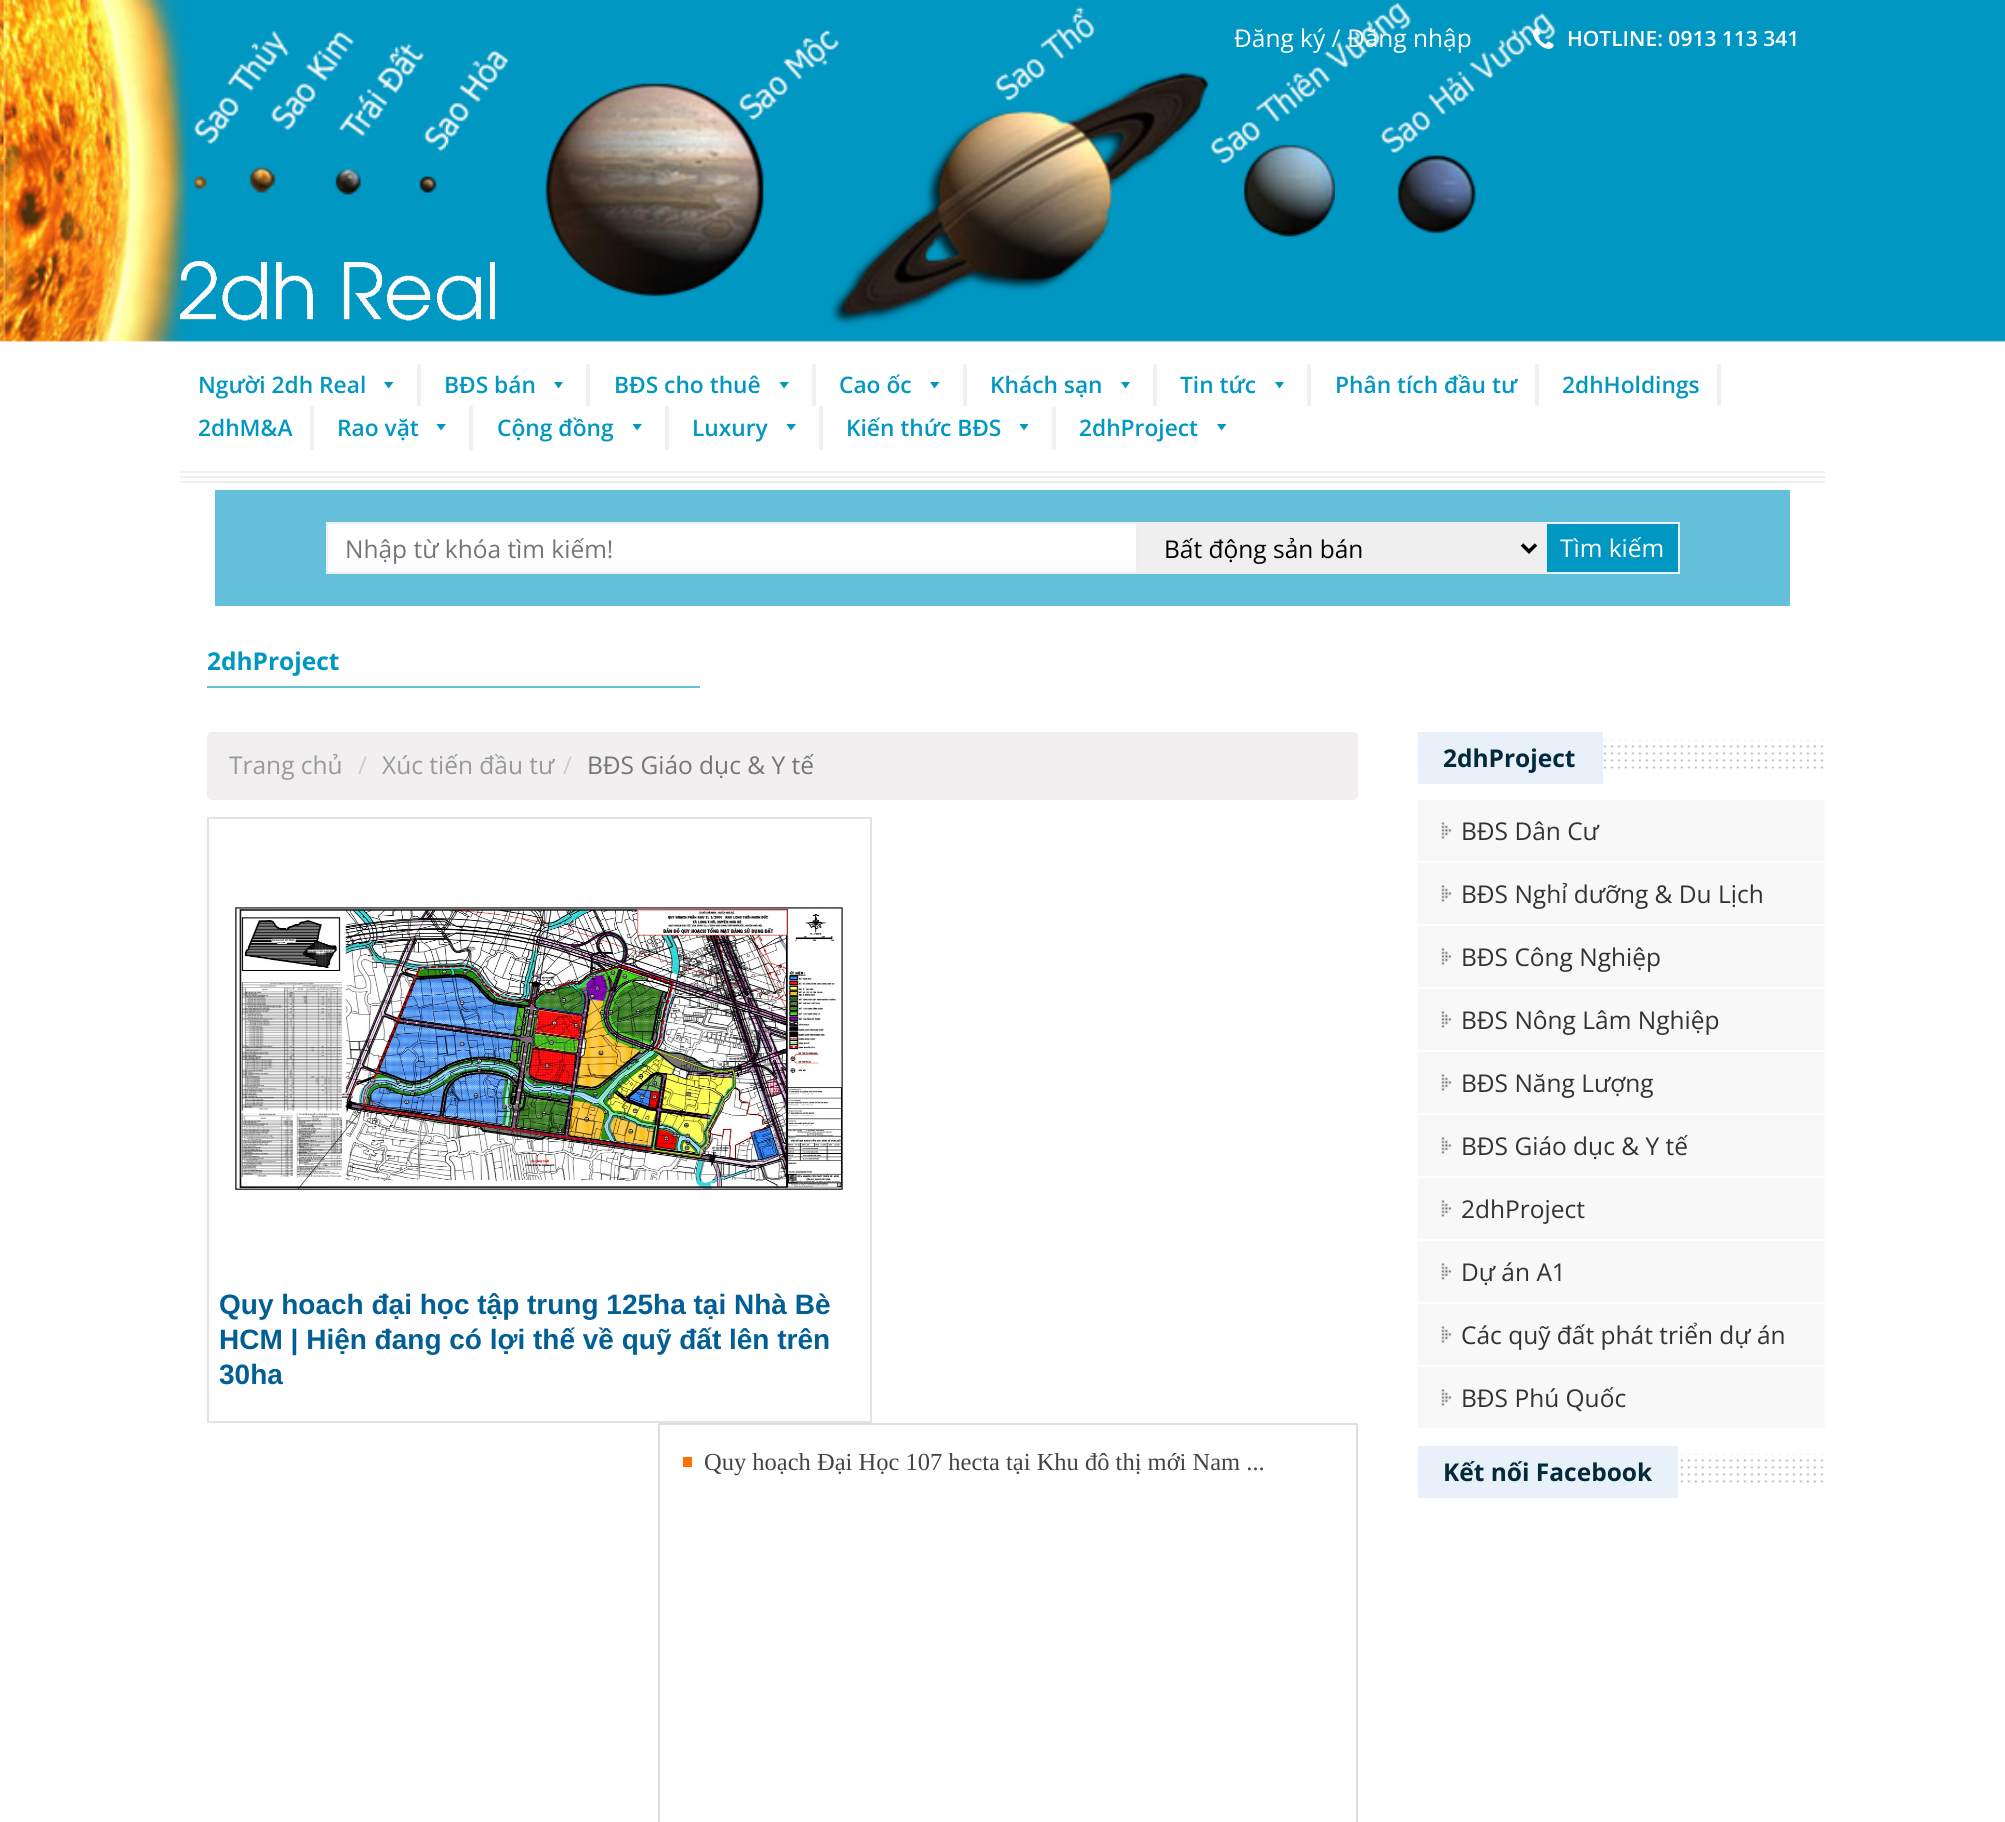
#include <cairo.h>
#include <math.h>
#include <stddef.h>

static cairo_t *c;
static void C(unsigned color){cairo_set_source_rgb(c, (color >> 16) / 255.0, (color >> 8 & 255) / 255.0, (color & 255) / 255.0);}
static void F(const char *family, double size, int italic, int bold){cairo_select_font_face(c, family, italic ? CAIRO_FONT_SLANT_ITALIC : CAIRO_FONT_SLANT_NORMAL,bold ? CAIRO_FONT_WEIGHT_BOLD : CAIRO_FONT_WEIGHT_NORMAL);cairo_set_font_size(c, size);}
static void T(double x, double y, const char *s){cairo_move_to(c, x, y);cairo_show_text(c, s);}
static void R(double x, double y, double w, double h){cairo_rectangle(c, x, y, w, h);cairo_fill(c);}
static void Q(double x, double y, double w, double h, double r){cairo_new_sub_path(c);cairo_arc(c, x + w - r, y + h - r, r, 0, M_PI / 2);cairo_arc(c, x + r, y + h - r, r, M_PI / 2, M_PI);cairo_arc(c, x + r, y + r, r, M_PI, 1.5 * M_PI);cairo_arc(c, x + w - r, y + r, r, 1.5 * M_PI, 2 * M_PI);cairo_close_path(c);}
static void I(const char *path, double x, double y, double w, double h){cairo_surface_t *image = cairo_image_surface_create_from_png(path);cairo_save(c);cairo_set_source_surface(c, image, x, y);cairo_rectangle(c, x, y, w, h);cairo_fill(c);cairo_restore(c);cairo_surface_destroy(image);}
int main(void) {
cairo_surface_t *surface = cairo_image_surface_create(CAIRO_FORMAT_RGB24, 2005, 1822);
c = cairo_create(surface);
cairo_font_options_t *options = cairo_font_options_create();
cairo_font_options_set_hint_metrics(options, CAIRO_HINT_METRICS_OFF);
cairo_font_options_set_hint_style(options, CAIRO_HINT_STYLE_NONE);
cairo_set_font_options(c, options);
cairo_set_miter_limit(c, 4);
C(0xffffff);
cairo_paint(c);
I("1.png",0,0,2005,342);
F("Open Sans",24.5,0,0);
C(0xffffff);
T(1234,47,"Đăng ký / Đăng nhập");
I("2.png",1533,28,21,21);
F("Open Sans SemiBold",21,0,0);
T(1567,46,"HOTLINE: 0913 113 341");
I("3.png",180,261,315,60);
C(0xefefef);
R(180,471,1645,2);
C(0xf1f1f1);
R(417,364,4,42);
F("Open Sans SemiBold",22.75,0,0);
C(0x0097c2);
T(198,393,"Người 2dh Real");
cairo_new_path(c);
cairo_move_to(c,393.5,382);
cairo_line_to(c,388.5,388.5);
cairo_line_to(c,384,382);
cairo_close_path(c);
cairo_fill(c);
C(0xf1f1f1);
R(586,364,4,42);
C(0x0097c2);
T(444,393,"BĐS bán");
cairo_new_path(c);
cairo_move_to(c,563,382);
cairo_line_to(c,558.5,388.5);
cairo_line_to(c,554,382);
cairo_close_path(c);
cairo_fill(c);
C(0xf1f1f1);
R(812,364,4,42);
C(0x0097c2);
T(614,393,"BĐS cho thuê");
cairo_new_path(c);
cairo_move_to(c,789,382);
cairo_line_to(c,784,388.5);
cairo_line_to(c,779.5,382);
cairo_close_path(c);
cairo_fill(c);
C(0xf1f1f1);
R(963,364,4,42);
C(0x0097c2);
T(839,393,"Cao ốc");
cairo_new_path(c);
cairo_move_to(c,939.5,382);
cairo_line_to(c,934.5,388.5);
cairo_line_to(c,930,382);
cairo_close_path(c);
cairo_fill(c);
C(0xf1f1f1);
R(1153,364,4,42);
C(0x0097c2);
T(990,393,"Khách sạn");
cairo_new_path(c);
cairo_move_to(c,1130,382);
cairo_line_to(c,1125.5,388.5);
cairo_line_to(c,1121,382);
cairo_close_path(c);
cairo_fill(c);
C(0xf1f1f1);
R(1307,364,4,42);
C(0x0097c2);
T(1180,393,"Tin tức");
cairo_new_path(c);
cairo_move_to(c,1284,382);
cairo_line_to(c,1279.5,388.5);
cairo_line_to(c,1275,382);
cairo_close_path(c);
cairo_fill(c);
C(0xf1f1f1);
R(1535,364,4,42);
C(0x0097c2);
T(1335,393,"Phân tích đầu tư");
C(0xf1f1f1);
R(1717,364,4,42);
C(0x0097c2);
T(1562,393,"2dhHoldings");
C(0xf1f1f1);
R(310,406,4,44);
C(0x0097c2);
T(198,436,"2dhM&A");
C(0xf1f1f1);
R(469,406,4,44);
C(0x0097c2);
T(337,436,"Rao vặt");
cairo_new_path(c);
cairo_move_to(c,446,424);
cairo_line_to(c,441,430.5);
cairo_line_to(c,436.5,424);
cairo_close_path(c);
cairo_fill(c);
C(0xf1f1f1);
R(665,406,4,44);
C(0x0097c2);
T(497,436,"Cộng đồng");
cairo_new_path(c);
cairo_move_to(c,642,424);
cairo_line_to(c,637,430.5);
cairo_line_to(c,632.5,424);
cairo_close_path(c);
cairo_fill(c);
C(0xf1f1f1);
R(819,406,4,44);
C(0x0097c2);
T(692,436,"Luxury");
cairo_new_path(c);
cairo_move_to(c,796,424);
cairo_line_to(c,791,430.5);
cairo_line_to(c,786.5,424);
cairo_close_path(c);
cairo_fill(c);
C(0xf1f1f1);
R(1052,406,4,44);
C(0x0097c2);
T(846,436,"Kiến thức BĐS");
cairo_new_path(c);
cairo_move_to(c,1028.5,424);
cairo_line_to(c,1024,430.5);
cairo_line_to(c,1019.5,424);
cairo_close_path(c);
cairo_fill(c);
T(1079,436,"2dhProject");
cairo_new_path(c);
cairo_move_to(c,1226.5,424);
cairo_line_to(c,1221.5,430.5);
cairo_line_to(c,1217,424);
cairo_close_path(c);
cairo_fill(c);
C(0xefefef);
R(180,476,1645,2);
R(180,481,1645,2);
C(0x64bfdb);
R(215,490,1575,116);
C(0xffffff);
cairo_rectangle(c,327,523,810,50);
cairo_fill_preserve(c);
C(0xebeff0);
cairo_stroke(c);
F("Open Sans",24.5,0,0);
C(0x757575);
T(345,558,"Nhập từ khóa tìm kiếm!");
C(0xefefef);
cairo_rectangle(c,1139,523,405,50);
cairo_fill_preserve(c);
C(0xebeff0);
cairo_stroke(c);
cairo_new_path(c);
cairo_move_to(c,1522,544.5);
cairo_line_to(c,1529,551.5);
cairo_line_to(c,1536,544.5);
C(0x000000);
cairo_set_line_width(c,3.5);
cairo_stroke(c);
T(1164,558,"Bất động sản bán");
C(0x0097c2);
cairo_rectangle(c,1546,523,133,50);
cairo_fill_preserve(c);
C(0xebeff0);
cairo_set_line_width(c,2);
cairo_stroke(c);
C(0xffffff);
T(1560,557,"Tìm kiếm");
C(0x63bfda);
R(207,686,493,2);
F("Open Sans",24.5,0,1);
C(0x0097c2);
T(207,670,"2dhProject");
C(0xf1eff0);
Q(208,733,1149,66,4);
cairo_fill_preserve(c);
C(0xf0eeef);
cairo_stroke(c);
F("Open Sans",24.5,0,0);
C(0x999999);
T(229,774,"Trang chủ");
C(0xcccccc);
T(358,774,"/");
C(0x999999);
T(382,774,"Xúc tiến đầu tư");
C(0xcccccc);
T(563,774,"/");
C(0x757575);
T(587,774,"BĐS Giáo dục & Y tế");
cairo_rectangle(c,208,818,663,604);
C(0xe3e3e3);
cairo_stroke(c);
I("4.png",235,904,608,289);
F("Liberation Sans",28,0,1);
C(0x015f95);
T(219,1314,"Quy hoach đại học tập trung 125ha tại Nhà Bè");
T(219,1349,"HCM | Hiện đang có lợi thế về quỹ đất lên trên");
T(219,1384,"30ha");
cairo_rectangle(c,659,1424,698,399);
C(0xdedede);
cairo_stroke(c);
C(0xff7000);
R(683,1457,9,10);
F("Liberation Serif",24.5,0,0);
C(0x444444);
T(704,1470,"Quy hoạch Đại Học 107 hecta tại Khu đô thị mới Nam ...");
I("5.png",1417,740,407,29);
C(0xe8f1fa);
R(1418,732,185,52);
F("Open Sans",24.5,0,1);
C(0x032a3b);
T(1443,767,"2dhProject");
C(0xf8f8f8);
R(1418,800,407,61);
I("6.png",1441,822,11,17);
F("Open Sans",24.5,0,0);
C(0x333333);
T(1461,840,"BĐS Dân Cư");
C(0xf8f8f8);
R(1418,863,407,61);
I("6.png",1441,885,11,17);
C(0x333333);
T(1461,903,"BĐS Nghỉ dưỡng & Du Lịch");
C(0xf8f8f8);
R(1418,926,407,61);
I("6.png",1441,948,11,17);
C(0x333333);
T(1461,966,"BĐS Công Nghiệp");
C(0xf8f8f8);
R(1418,989,407,61);
I("6.png",1441,1011,11,17);
C(0x333333);
T(1461,1029,"BĐS Nông Lâm Nghiệp");
C(0xf8f8f8);
R(1418,1052,407,61);
I("6.png",1441,1074,11,17);
C(0x333333);
T(1461,1092,"BĐS Năng Lượng");
C(0xf8f8f8);
R(1418,1115,407,61);
I("6.png",1441,1137,11,17);
C(0x333333);
T(1461,1155,"BĐS Giáo dục & Y tế");
C(0xf8f8f8);
R(1418,1178,407,61);
I("6.png",1441,1200,11,17);
C(0x333333);
T(1461,1218,"2dhProject");
C(0xf8f8f8);
R(1418,1241,407,61);
I("6.png",1441,1263,11,17);
C(0x333333);
T(1461,1281,"Dự án A1");
C(0xf8f8f8);
R(1418,1304,407,61);
I("6.png",1441,1326,11,17);
C(0x333333);
T(1461,1344,"Các quỹ đất phát triển dự án");
C(0xf8f8f8);
R(1418,1367,407,61);
I("6.png",1441,1389,11,17);
C(0x333333);
T(1461,1407,"BĐS Phú Quốc");
I("5.png",1417,1454,407,29);
C(0xe8f1fa);
R(1418,1446,260,52);
F("Open Sans",24.5,0,1);
C(0x032a3b);
T(1443,1481,"Kết nối Facebook");
cairo_surface_write_to_png(surface, "o.png");
cairo_font_options_destroy(options);
cairo_destroy(c);
cairo_surface_destroy(surface);
return 0;
}
